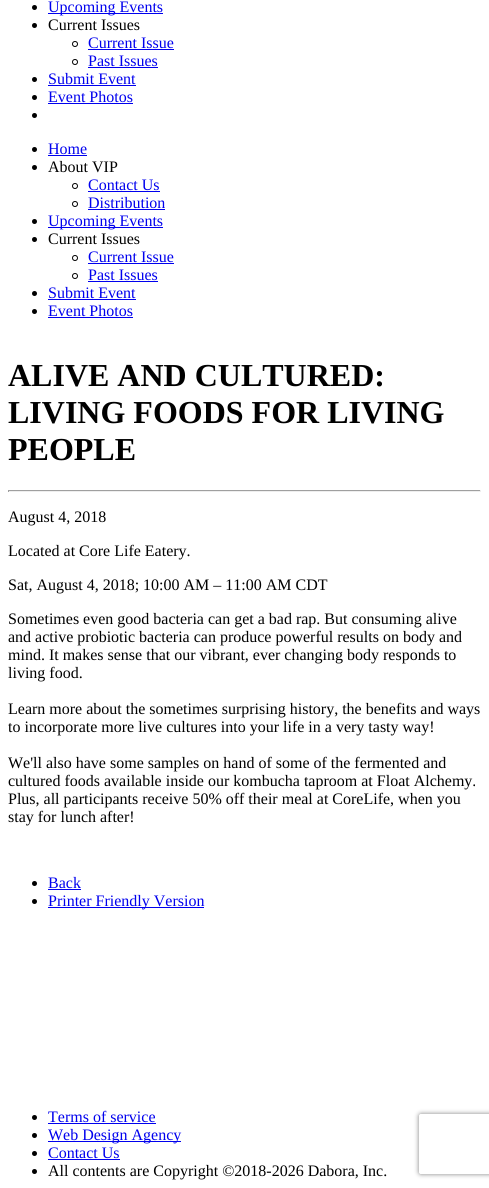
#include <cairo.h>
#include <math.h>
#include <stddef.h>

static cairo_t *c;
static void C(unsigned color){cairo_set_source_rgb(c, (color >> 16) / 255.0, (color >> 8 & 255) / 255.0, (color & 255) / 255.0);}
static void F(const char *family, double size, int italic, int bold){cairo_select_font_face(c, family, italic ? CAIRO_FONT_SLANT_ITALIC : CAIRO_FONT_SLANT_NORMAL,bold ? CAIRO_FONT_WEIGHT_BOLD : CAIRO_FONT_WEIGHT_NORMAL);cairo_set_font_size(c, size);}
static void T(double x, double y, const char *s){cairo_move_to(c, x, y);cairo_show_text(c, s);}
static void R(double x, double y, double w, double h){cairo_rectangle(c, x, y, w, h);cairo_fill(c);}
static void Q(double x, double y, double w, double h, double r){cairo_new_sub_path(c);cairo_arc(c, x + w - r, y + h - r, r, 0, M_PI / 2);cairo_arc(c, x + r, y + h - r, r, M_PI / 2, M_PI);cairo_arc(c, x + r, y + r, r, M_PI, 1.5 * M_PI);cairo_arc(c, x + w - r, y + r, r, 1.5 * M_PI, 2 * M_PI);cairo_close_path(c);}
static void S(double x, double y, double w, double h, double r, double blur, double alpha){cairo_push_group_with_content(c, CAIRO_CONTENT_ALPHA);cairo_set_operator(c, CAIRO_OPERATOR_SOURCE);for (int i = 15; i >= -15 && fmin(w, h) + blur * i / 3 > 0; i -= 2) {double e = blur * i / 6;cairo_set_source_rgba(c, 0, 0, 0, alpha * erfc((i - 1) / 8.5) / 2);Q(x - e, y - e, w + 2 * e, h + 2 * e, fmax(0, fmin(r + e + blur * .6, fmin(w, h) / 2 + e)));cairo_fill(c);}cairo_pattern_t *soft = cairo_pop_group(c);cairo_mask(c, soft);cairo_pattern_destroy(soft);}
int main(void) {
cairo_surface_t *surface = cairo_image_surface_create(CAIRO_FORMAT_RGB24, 489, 1188);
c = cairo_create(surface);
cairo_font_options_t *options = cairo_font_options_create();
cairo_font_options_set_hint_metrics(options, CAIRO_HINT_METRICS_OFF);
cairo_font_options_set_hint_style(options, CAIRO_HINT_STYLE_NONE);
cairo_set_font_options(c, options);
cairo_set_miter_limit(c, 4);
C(0xffffff);
cairo_paint(c);
C(0x000000);
cairo_arc(c,34.5,7.5,2.5,0,2 * M_PI);
cairo_fill(c);
C(0x0000ee);
R(48,13,115,1);
F("Liberation Serif",16,0,0);
T(48,12,"Upcoming Events");
C(0x000000);
cairo_new_path(c);
cairo_arc(c,34.5,25.5,2.5,0,2 * M_PI);
cairo_fill(c);
T(48,30,"Current Issues");
cairo_new_path(c);
cairo_arc(c,75,44,2.5,0,2 * M_PI);
cairo_set_line_width(c,1);
cairo_stroke(c);
C(0x0000ee);
T(88,48,"Current Issue");
R(88,49,86,1);
cairo_new_path(c);
cairo_arc(c,75,62,2.5,0,2 * M_PI);
C(0x000000);
cairo_stroke(c);
C(0x0000ee);
T(88,66,"Past Issues");
R(88,67,70,1);
C(0x000000);
cairo_new_path(c);
cairo_arc(c,34.5,79.5,2.5,0,2 * M_PI);
cairo_fill(c);
C(0x0000ee);
T(48,84,"Submit Event");
R(48,85,88,1);
C(0x000000);
cairo_new_path(c);
cairo_arc(c,34.5,97.5,2.5,0,2 * M_PI);
cairo_fill(c);
C(0x0000ee);
T(48,102,"Event Photos");
R(48,103,85,1);
C(0x000000);
cairo_new_path(c);
cairo_arc(c,34.5,115.5,2.5,0,2 * M_PI);
cairo_fill(c);
cairo_arc(c,34.5,149.5,2.5,0,2 * M_PI);
cairo_fill(c);
C(0x0000ee);
T(48,154,"Home");
R(48,155,39,1);
C(0x000000);
cairo_new_path(c);
cairo_arc(c,34.5,167.5,2.5,0,2 * M_PI);
cairo_fill(c);
T(48,172,"About VIP");
cairo_new_path(c);
cairo_arc(c,75,186,2.5,0,2 * M_PI);
cairo_stroke(c);
C(0x0000ee);
T(88,190,"Contact Us");
R(88,191,72,1);
cairo_new_path(c);
cairo_arc(c,75,204,2.5,0,2 * M_PI);
C(0x000000);
cairo_stroke(c);
C(0x0000ee);
T(88,208,"Distribution");
R(88,209,77,1);
C(0x000000);
cairo_new_path(c);
cairo_arc(c,34.5,221.5,2.5,0,2 * M_PI);
cairo_fill(c);
C(0x0000ee);
R(48,227,115,1);
T(48,226,"Upcoming Events");
C(0x000000);
cairo_new_path(c);
cairo_arc(c,34.5,239.5,2.5,0,2 * M_PI);
cairo_fill(c);
T(48,244,"Current Issues");
cairo_new_path(c);
cairo_arc(c,75,258,2.5,0,2 * M_PI);
cairo_stroke(c);
C(0x0000ee);
T(88,262,"Current Issue");
R(88,263,86,1);
cairo_new_path(c);
cairo_arc(c,75,276,2.5,0,2 * M_PI);
C(0x000000);
cairo_stroke(c);
C(0x0000ee);
T(88,280,"Past Issues");
R(88,281,70,1);
C(0x000000);
cairo_new_path(c);
cairo_arc(c,34.5,293.5,2.5,0,2 * M_PI);
cairo_fill(c);
C(0x0000ee);
T(48,298,"Submit Event");
R(48,299,88,1);
C(0x000000);
cairo_new_path(c);
cairo_arc(c,34.5,311.5,2.5,0,2 * M_PI);
cairo_fill(c);
C(0x0000ee);
T(48,316,"Event Photos");
R(48,317,85,1);
F("Liberation Serif",32,0,1);
C(0x000000);
T(8,386,"ALIVE AND CULTURED:");
T(8,423,"LIVING FOODS FOR LIVING");
T(8,460,"PEOPLE");
C(0x9f9f9f);
R(8,490,473,1);
C(0xeeeeee);
R(480,490,1,2);
R(8,491,473,1);
C(0x9f9f9f);
R(8,490,1,2);
F("Liberation Serif",16,0,0);
C(0x000000);
T(8,522,"August 4, 2018");
T(8,556,"Located at Core Life Eatery.");
T(8,590,"Sat, August 4, 2018; 10:00 AM – 11:00 AM CDT");
T(8,624,"Sometimes even good bacteria can get a bad rap. But consuming alive");
T(8,642,"and active probiotic bacteria can produce powerful results on body and");
T(8,660,"mind. It makes sense that our vibrant, ever changing body responds to");
T(8,678,"living food.");
T(8,714,"Learn more about the sometimes surprising history, the benefits and ways");
T(8,732,"to incorporate more live cultures into your life in a very tasty way!");
T(8,768,"We'll also have some samples on hand of some of the fermented and");
T(8,786,"cultured foods available inside our kombucha taproom at Float Alchemy.");
T(8,804,"Plus, all participants receive 50% off their meal at CoreLife, when you");
T(8,822,"stay for lunch after!");
cairo_new_path(c);
cairo_arc(c,34.5,883.5,2.5,0,2 * M_PI);
cairo_fill(c);
C(0x0000ee);
T(48,888,"Back");
R(48,889,33,1);
C(0x000000);
cairo_new_path(c);
cairo_arc(c,34.5,901.5,2.5,0,2 * M_PI);
cairo_fill(c);
C(0x0000ee);
R(48,907,156,1);
T(48,906,"Printer Friendly Version");
C(0x000000);
cairo_new_path(c);
cairo_arc(c,34.5,1117.5,2.5,0,2 * M_PI);
cairo_fill(c);
C(0x0000ee);
T(48,1122,"Terms of service");
R(48,1123,108,1);
C(0x000000);
cairo_new_path(c);
cairo_arc(c,34.5,1135.5,2.5,0,2 * M_PI);
cairo_fill(c);
C(0x0000ee);
R(48,1141,133,1);
T(48,1140,"Web Design Agency");
C(0x000000);
cairo_new_path(c);
cairo_arc(c,34.5,1153.5,2.5,0,2 * M_PI);
cairo_fill(c);
C(0x0000ee);
T(48,1158,"Contact Us");
R(48,1159,72,1);
C(0x000000);
cairo_new_path(c);
cairo_arc(c,34.5,1171.5,2.5,0,2 * M_PI);
cairo_fill(c);
T(48,1176,"All contents are Copyright ©2018-2026 Dabora, Inc.");
cairo_save(c);
cairo_set_fill_rule(c,CAIRO_FILL_RULE_EVEN_ODD);
cairo_new_path(c);
cairo_move_to(c,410,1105);
cairo_line_to(c,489,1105);
cairo_line_to(c,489,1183);
cairo_line_to(c,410,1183);
cairo_close_path(c);
cairo_move_to(c,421,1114);
cairo_line_to(c,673,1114);
cairo_curve_to(c,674,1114,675,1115,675,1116);
cairo_line_to(c,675,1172);
cairo_curve_to(c,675,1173,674,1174,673,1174);
cairo_line_to(c,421,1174);
cairo_curve_to(c,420,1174,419,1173,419,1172);
cairo_line_to(c,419,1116);
cairo_curve_to(c,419,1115,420,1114,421,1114);
cairo_close_path(c);
cairo_clip(c);
C(0x808080);
S(419,1114,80,60,2,2.5,1);
cairo_restore(c);
cairo_surface_write_to_png(surface, "o.png");
cairo_font_options_destroy(options);
cairo_destroy(c);
cairo_surface_destroy(surface);
return 0;
}
